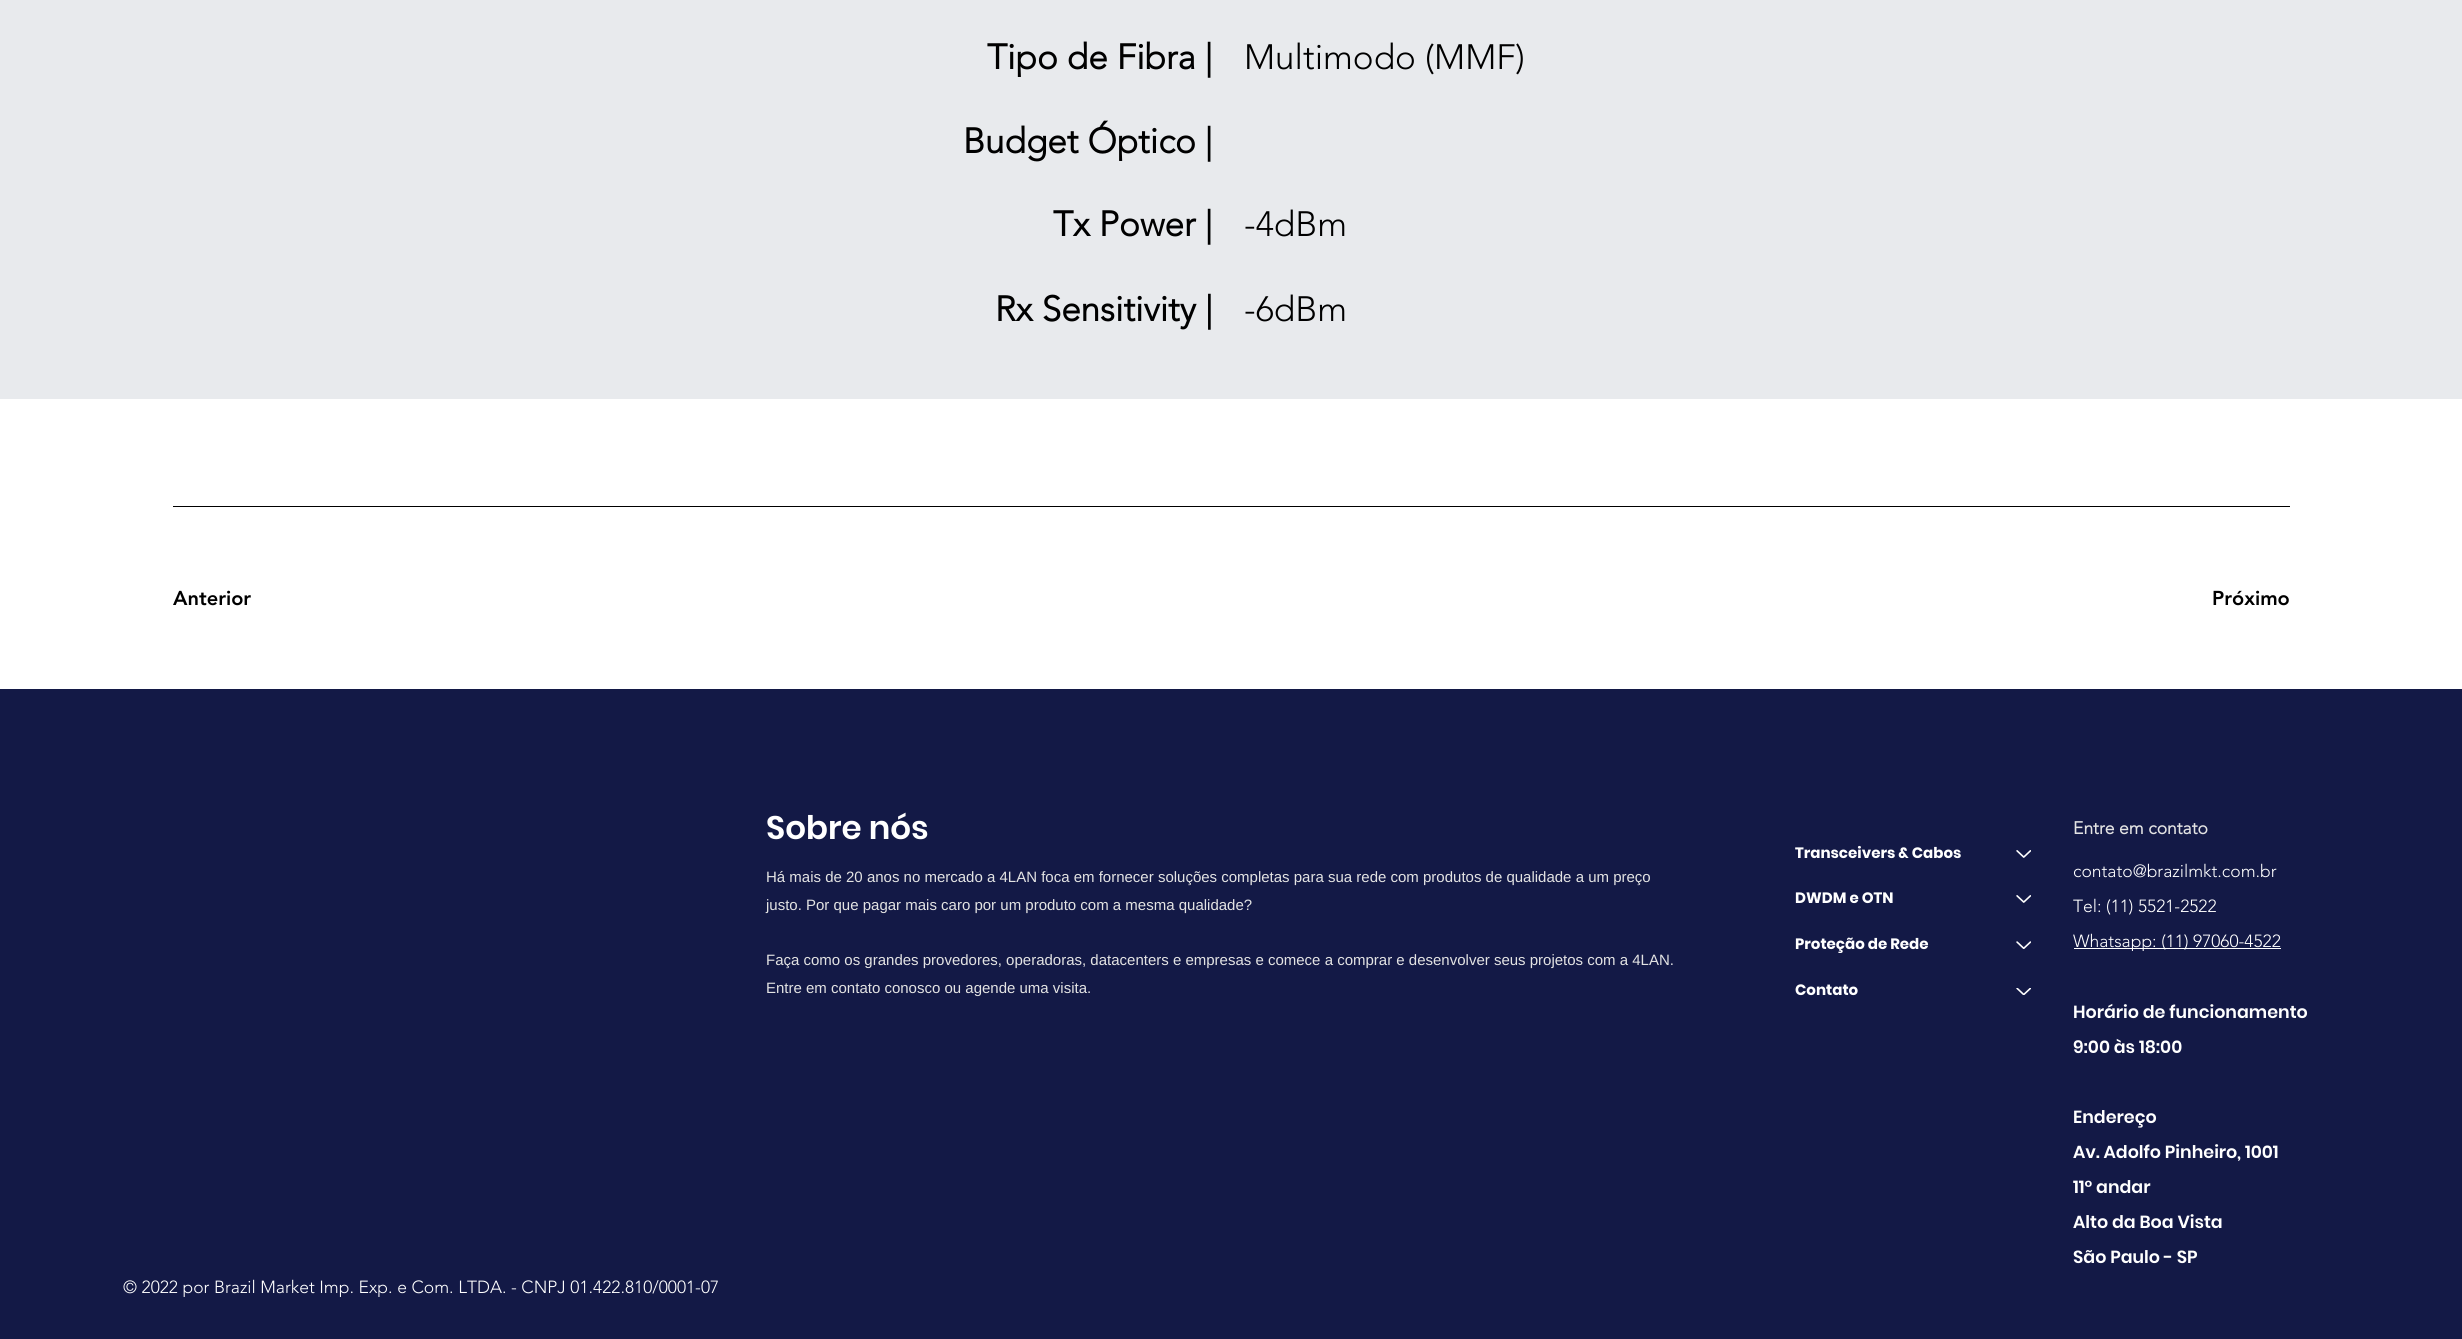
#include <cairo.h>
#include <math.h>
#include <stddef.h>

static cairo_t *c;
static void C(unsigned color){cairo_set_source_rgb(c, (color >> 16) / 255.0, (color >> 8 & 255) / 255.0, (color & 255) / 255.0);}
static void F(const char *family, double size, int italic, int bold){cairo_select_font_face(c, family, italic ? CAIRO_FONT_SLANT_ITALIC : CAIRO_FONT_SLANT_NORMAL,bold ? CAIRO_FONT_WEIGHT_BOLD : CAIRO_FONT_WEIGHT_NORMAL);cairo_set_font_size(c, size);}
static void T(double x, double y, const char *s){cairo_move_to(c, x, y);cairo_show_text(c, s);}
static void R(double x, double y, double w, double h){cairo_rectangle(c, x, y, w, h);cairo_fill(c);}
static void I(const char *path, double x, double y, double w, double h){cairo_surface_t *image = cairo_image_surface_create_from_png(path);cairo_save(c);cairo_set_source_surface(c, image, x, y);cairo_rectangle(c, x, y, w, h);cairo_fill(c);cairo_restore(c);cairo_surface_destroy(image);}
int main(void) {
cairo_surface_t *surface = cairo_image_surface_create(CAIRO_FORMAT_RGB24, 2462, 1339);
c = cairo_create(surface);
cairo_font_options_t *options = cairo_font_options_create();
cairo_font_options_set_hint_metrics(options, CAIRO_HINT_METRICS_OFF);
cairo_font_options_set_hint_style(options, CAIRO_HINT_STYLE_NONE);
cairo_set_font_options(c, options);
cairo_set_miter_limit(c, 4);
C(0xffffff);
cairo_paint(c);
C(0xe8eaed);
R(0,0,2462,399);
F("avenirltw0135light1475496",35,0,1);
C(0x000000);
T(987,69,"Tipo de Fibra |");
F("avenirltw0135light1475496 Light",35,0,0);
T(1244,69,"Multimodo (MMF)");
F("avenirltw0135light1475496",35,0,1);
T(963,153,"Budget Óptico |");
T(1053,236,"Tx Power |");
F("avenirltw0135light1475496 Light",35,0,0);
T(1244,236,"-4dBm");
F("avenirltw0135light1475496",35,0,1);
T(995,321,"Rx Sensitivity |");
F("avenirltw0135light1475496 Light",35,0,0);
T(1244,321,"-6dBm");
R(173,506,2117,1);
F("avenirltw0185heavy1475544 Black",20,0,0);
T(173,605,"Anterior");
T(2212,605,"Próximo");
C(0x131946);
R(0,689,2462,650);
F("Poppins SemiBold",32.5,0,0);
C(0xffffff);
T(766,839,"Sobre nós");
F("Poppins",15,0,1);
T(1795,858,"Transceivers & Cabos");
I("1.png",2016,850,15,8);
T(1795,903,"DWDM e OTN");
I("1.png",2016,895,15,8);
T(1795,949,"Proteção de Rede");
I("2.png",2016,941,15,8);
T(1795,995,"Contato");
I("3.png",2016,988,15,7);
F("avenirltw0135light1475496",17.5,0,1);
C(0xe3e3e3);
T(2073,834,"Entre em contato");
F("avenirltw0135light1475496 Light",17.5,0,0);
C(0xffffff);
T(2073,877,"contato@brazilmkt.com.br");
T(2073,912,"Tel: (11) 5521-2522");
R(2074,948,207,1);
T(2073,947,"Whatsapp: (11) 97060-4522");
F("Poppins SemiBold",17.5,0,0);
T(2073,1018,"Horário de funcionamento");
T(2073,1053,"9:00 às 18:00");
T(2073,1123,"Endereço");
T(2073,1158,"Av. Adolfo Pinheiro, 1001");
T(2073,1193,"11° andar");
T(2073,1228,"Alto da Boa Vista");
T(2073,1263,"São Paulo - SP");
F("Liberation Sans",15,0,0);
C(0xe3e3e3);
T(766,882,"Há mais de 20 anos no mercado a 4LAN foca em fornecer soluções completas para sua rede com produtos de qualidade a um preço");
T(766,910,"justo. Por que pagar mais caro por um produto com a mesma qualidade?");
T(766,965,"Faça como os grandes provedores, operadoras, datacenters e empresas e comece a comprar e desenvolver seus projetos com a 4LAN.");
T(766,993,"Entre em contato conosco ou agende uma visita.");
F("avenirltw0135light1475496 Light",17.5,0,0);
C(0xffffff);
T(123,1293,"© 2022 por Brazil Market Imp. Exp. e Com. LTDA. - CNPJ 01.422.810/0001-07");
cairo_surface_write_to_png(surface, "o.png");
cairo_font_options_destroy(options);
cairo_destroy(c);
cairo_surface_destroy(surface);
return 0;
}
